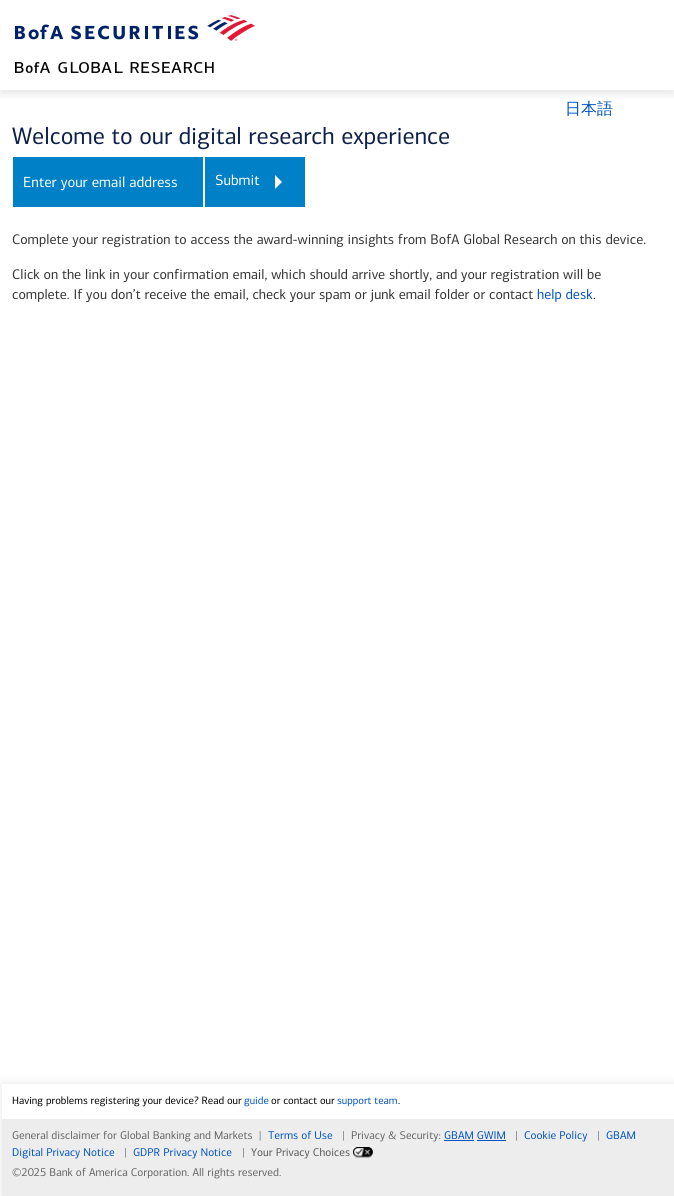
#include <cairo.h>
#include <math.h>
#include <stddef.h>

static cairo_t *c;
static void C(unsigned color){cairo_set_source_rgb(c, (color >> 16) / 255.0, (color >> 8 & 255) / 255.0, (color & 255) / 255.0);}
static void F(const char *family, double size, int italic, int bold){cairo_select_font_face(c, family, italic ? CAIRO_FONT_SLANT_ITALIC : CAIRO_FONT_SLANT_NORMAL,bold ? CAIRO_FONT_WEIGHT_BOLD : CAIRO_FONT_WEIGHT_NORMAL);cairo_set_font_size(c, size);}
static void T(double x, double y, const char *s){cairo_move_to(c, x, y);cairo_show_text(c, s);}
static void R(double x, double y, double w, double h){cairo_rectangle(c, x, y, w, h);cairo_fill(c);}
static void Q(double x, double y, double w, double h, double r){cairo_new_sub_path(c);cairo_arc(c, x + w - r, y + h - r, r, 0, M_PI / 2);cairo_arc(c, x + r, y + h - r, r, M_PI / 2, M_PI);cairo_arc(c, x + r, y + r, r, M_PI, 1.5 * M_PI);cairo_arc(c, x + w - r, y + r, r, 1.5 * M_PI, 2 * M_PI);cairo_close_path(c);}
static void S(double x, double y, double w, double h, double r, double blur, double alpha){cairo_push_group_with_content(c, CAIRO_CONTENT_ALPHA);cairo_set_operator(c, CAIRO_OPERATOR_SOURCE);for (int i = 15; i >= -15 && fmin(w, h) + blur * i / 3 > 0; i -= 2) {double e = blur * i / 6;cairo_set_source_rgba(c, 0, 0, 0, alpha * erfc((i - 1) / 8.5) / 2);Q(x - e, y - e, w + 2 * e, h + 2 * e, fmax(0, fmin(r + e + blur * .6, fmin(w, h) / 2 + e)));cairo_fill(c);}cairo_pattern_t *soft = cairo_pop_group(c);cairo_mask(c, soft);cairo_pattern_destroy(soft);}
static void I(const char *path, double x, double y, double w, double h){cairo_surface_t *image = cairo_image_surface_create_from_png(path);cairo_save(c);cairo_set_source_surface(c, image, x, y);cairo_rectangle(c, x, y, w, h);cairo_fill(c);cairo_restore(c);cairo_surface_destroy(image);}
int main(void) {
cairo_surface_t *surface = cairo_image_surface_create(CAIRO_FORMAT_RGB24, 674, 1196);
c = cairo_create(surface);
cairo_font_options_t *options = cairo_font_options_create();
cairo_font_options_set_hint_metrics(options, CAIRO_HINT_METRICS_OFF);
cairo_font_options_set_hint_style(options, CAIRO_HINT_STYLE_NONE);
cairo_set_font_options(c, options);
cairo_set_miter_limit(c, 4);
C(0xffffff);
cairo_paint(c);
cairo_save(c);
cairo_rectangle(c,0,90,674,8);
cairo_clip(c);
C(0x000000);
S(0,14,674,80,0,4.5,.1);
cairo_restore(c);
I("1.png",15,15,240,26);
I("2.png",15,62,199,11);
F("WenQuanYi Zen Hei Medium",16,0,0);
C(0x0052c2);
T(565,114,"日本語");
F("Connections",24,0,0);
C(0x0d204a);
T(12,144,"Welcome to our digital research experience");
C(0x0080c6);
R(13,157,190,50);
F("Connections",14.75,0,0);
C(0xffffff);
T(23,187,"Enter your email address");
C(0x0080c6);
R(205,157,100,50);
C(0xffffff);
T(215,185,"Submit");
cairo_new_path(c);
cairo_move_to(c,275,189);
cairo_line_to(c,275,175);
cairo_line_to(c,282,182);
cairo_close_path(c);
cairo_fill(c);
F("Connections",14,0,0);
C(0x333333);
T(12,244,"Complete your registration to access the award-winning insights from BofA Global Research on this device.");
T(12,279,"Click on the link in your confirmation email, which should arrive shortly, and your registration will be");
T(12,299,"complete. If you don’t receive the email, check your spam or junk email folder or contact");
C(0x0052c2);
T(537,299,"help desk");
C(0x333333);
T(593,299,".");
C(0x000000);
S(2,1084,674,112,0,5,.1);
C(0xededed);
R(2,1119,672,77);
C(0xffffff);
R(2,1084,672,35);
F("Connections",10.7,0,0);
C(0x000000);
T(12,1104,"Having problems registering your device? Read our");
C(0x0052c2);
T(244,1104,"guide");
C(0x000000);
T(271,1104,"or contact our");
C(0x0052c2);
T(337,1104,"support team");
C(0x000000);
T(398,1104,".");
F("Connections",11.3,0,0);
C(0x646464);
T(12,1139,"General disclaimer for Global Banking and Markets  |");
C(0x0052c2);
T(268,1139,"Terms of Use");
C(0x646464);
T(342,1139,"|");
T(351,1139,"Privacy & Security:");
C(0x0052c2);
T(444,1139,"GBAM GWIM");
R(444,1140,30,1);
R(477,1140,29,1);
C(0x646464);
T(515,1139,"|");
C(0x0052c2);
T(524,1139,"Cookie Policy");
C(0x646464);
T(597,1139,"|");
C(0x0052c2);
T(606,1139,"GBAM");
T(12,1156,"Digital Privacy Notice");
C(0x646464);
T(124,1156,"|");
C(0x0052c2);
T(133,1156,"GDPR Privacy Notice");
C(0x646464);
T(242,1156,"|");
C(0x575757);
T(251,1156,"Your Privacy Choices");
I("3.png",353,1147,20,11);
C(0x646464);
T(12,1176,"©2025 Bank of America Corporation. All rights reserved.");
cairo_surface_write_to_png(surface, "o.png");
cairo_font_options_destroy(options);
cairo_destroy(c);
cairo_surface_destroy(surface);
return 0;
}
